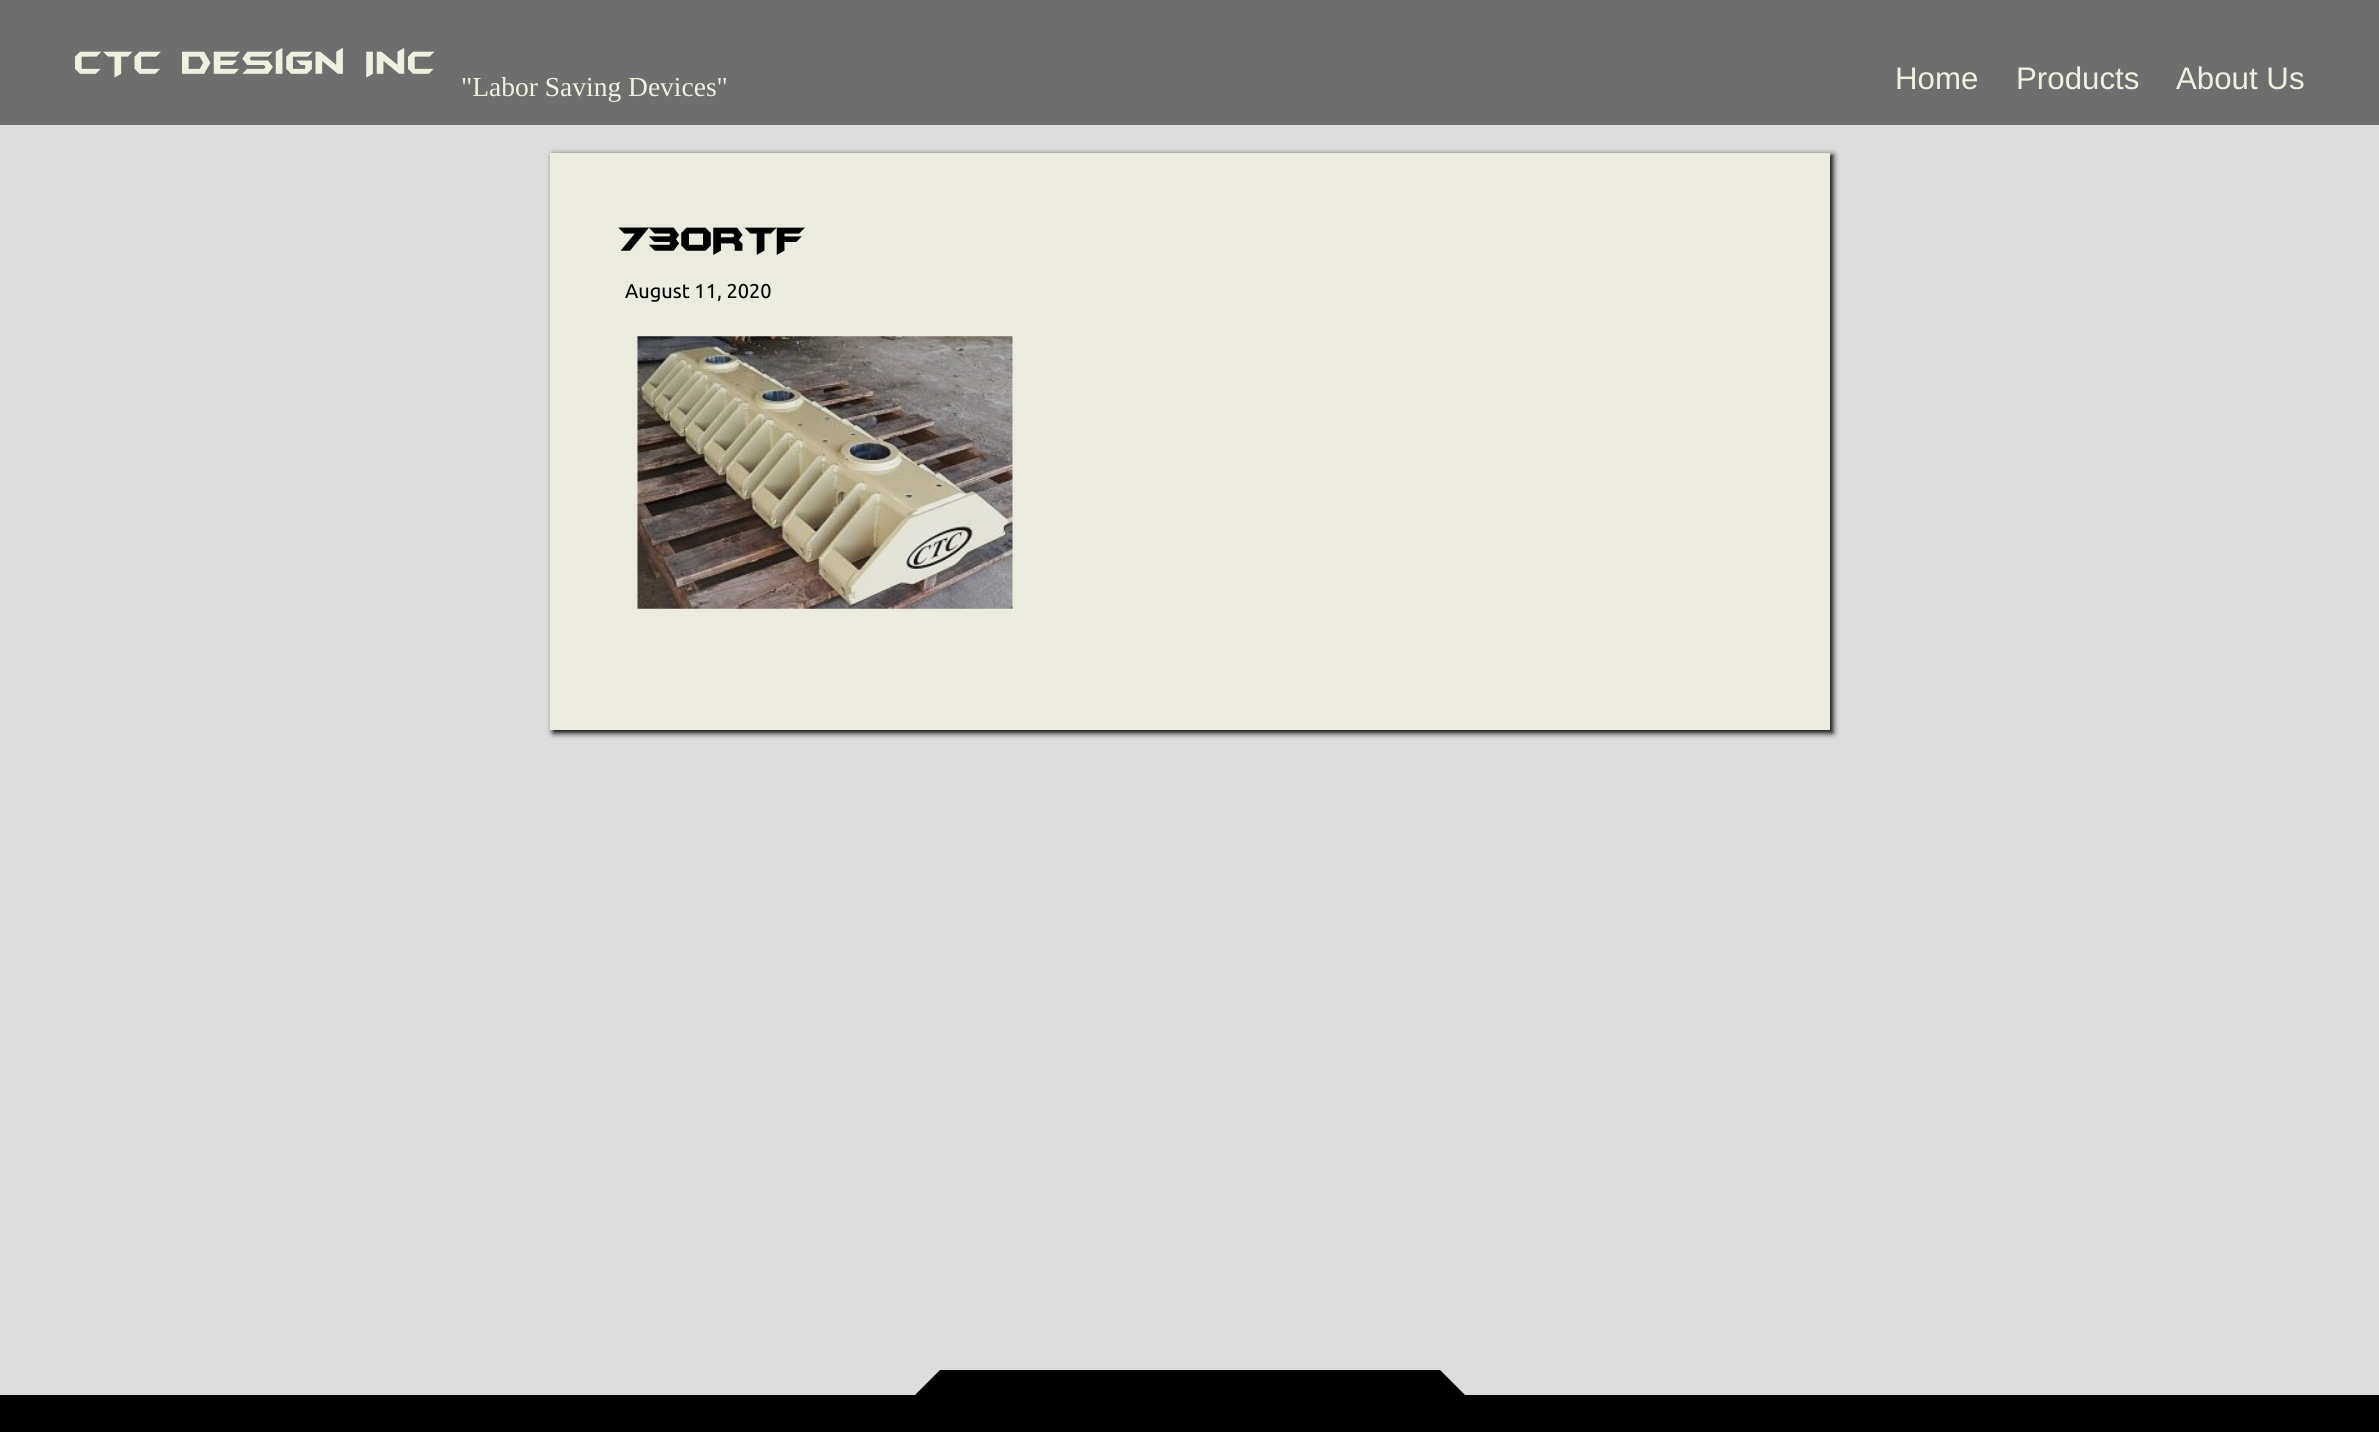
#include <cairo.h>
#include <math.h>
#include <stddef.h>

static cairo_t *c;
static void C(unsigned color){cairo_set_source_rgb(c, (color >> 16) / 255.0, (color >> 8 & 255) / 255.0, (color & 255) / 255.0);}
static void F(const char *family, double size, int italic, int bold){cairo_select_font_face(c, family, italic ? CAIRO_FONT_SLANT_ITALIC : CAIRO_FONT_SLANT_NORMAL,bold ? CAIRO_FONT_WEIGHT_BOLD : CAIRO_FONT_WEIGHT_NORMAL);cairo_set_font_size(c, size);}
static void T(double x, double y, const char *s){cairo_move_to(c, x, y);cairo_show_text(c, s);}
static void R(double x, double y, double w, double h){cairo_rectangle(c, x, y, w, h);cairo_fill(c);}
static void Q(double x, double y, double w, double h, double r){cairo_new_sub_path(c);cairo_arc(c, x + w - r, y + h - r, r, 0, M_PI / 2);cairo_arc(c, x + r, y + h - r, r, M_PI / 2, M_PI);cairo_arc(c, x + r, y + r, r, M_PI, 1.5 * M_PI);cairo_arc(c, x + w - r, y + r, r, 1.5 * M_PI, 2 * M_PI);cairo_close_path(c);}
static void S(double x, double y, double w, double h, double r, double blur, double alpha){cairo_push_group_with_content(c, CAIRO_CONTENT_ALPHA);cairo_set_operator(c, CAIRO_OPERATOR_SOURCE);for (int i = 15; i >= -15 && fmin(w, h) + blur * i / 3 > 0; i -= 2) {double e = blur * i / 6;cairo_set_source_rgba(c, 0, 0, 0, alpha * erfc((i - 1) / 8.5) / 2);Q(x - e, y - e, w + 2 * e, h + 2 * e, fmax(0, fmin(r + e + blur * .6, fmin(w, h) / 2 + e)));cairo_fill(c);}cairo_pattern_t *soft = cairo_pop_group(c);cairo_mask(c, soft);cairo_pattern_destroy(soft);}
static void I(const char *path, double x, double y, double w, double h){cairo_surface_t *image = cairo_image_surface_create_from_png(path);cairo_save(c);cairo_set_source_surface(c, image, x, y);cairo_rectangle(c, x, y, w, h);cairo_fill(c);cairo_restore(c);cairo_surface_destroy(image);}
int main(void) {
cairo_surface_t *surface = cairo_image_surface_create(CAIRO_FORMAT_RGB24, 2379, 1432);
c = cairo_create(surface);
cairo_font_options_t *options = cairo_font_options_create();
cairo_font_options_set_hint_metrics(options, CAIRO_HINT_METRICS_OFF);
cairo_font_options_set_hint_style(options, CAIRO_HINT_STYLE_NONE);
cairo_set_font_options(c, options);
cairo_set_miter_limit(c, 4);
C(0xdddddd);
cairo_paint(c);
C(0x6e6e6e);
R(0,0,2379,125);
F("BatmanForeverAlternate",37.5,0,0);
C(0xf0f0e1);
T(75,74,"CTC Design Inc");
F("Liberation Serif",27.5,0,0);
T(461,96,"\"Labor Saving Devices\"");
F("Liberation Sans",31.25,0,0);
T(1895,89,"Home");
T(2016,89,"Products");
T(2176,89,"About Us");
C(0x000000);
S(553,155,1280,578,0,3,1);
C(0xecebdf);
R(550,153,1280,577);
F("BatmanForeverAlternate",37.5,0,1);
C(0x000000);
T(619,251,"730RTF");
F("Ubuntu",20,0,0);
T(625,298,"August 11, 2020");
I("1.png",637,336,376,273);
cairo_new_path(c);
cairo_move_to(c,1465,1395);
cairo_line_to(c,915,1395);
cairo_line_to(c,940,1370);
cairo_line_to(c,1440,1370);
cairo_close_path(c);
cairo_fill(c);
R(0,1395,2379,37);
cairo_surface_write_to_png(surface, "o.png");
cairo_font_options_destroy(options);
cairo_destroy(c);
cairo_surface_destroy(surface);
return 0;
}
